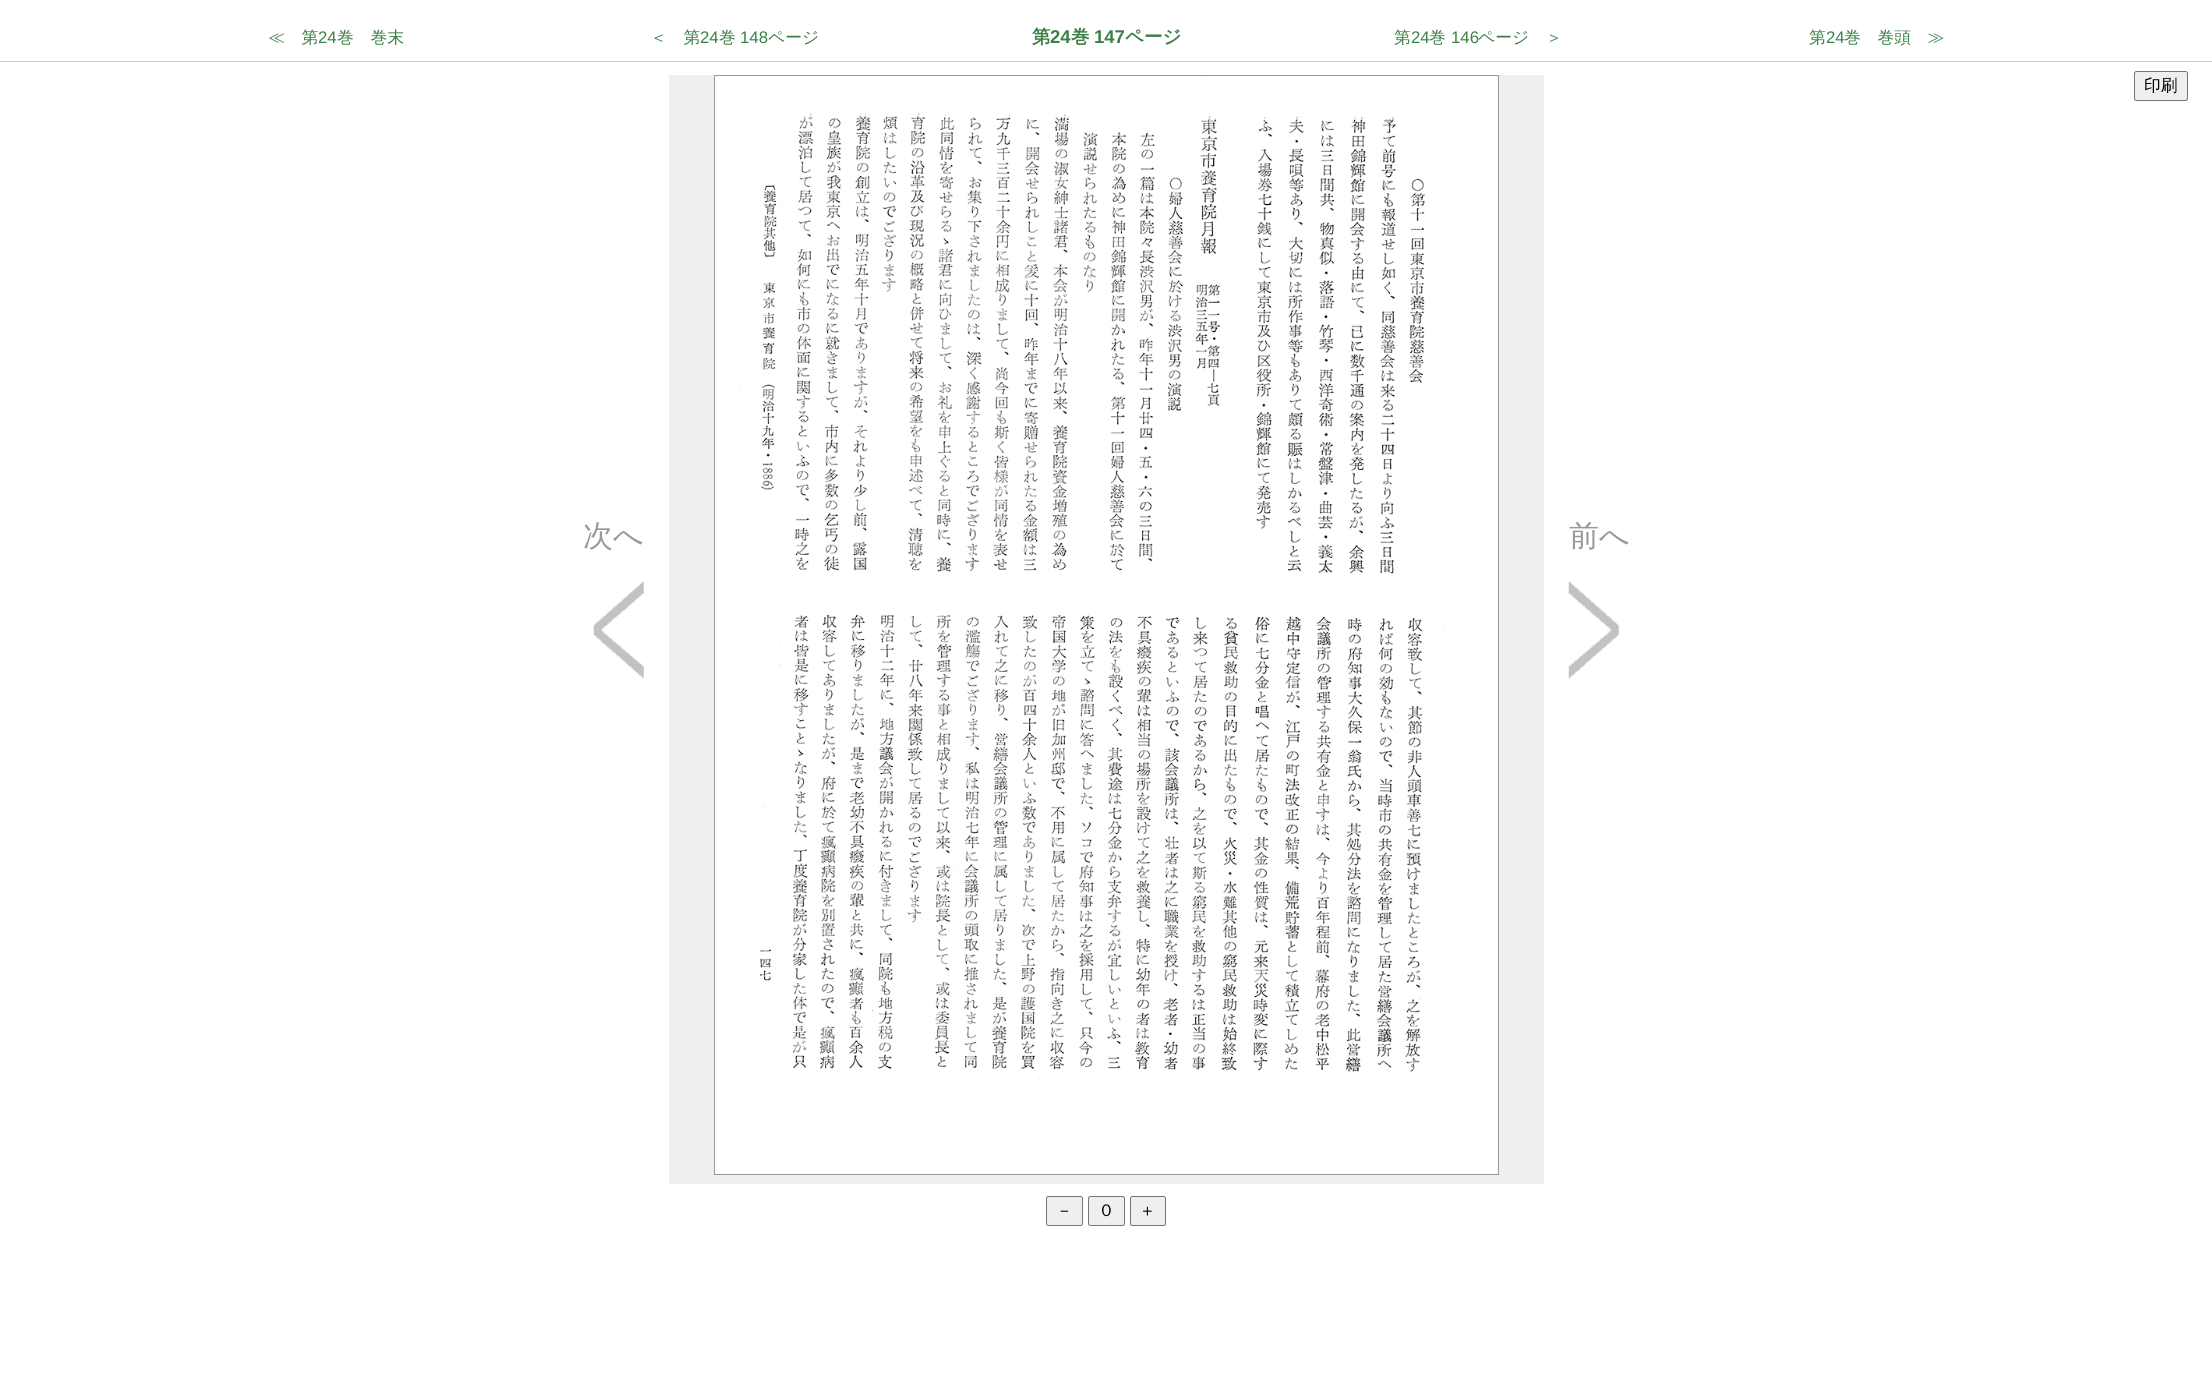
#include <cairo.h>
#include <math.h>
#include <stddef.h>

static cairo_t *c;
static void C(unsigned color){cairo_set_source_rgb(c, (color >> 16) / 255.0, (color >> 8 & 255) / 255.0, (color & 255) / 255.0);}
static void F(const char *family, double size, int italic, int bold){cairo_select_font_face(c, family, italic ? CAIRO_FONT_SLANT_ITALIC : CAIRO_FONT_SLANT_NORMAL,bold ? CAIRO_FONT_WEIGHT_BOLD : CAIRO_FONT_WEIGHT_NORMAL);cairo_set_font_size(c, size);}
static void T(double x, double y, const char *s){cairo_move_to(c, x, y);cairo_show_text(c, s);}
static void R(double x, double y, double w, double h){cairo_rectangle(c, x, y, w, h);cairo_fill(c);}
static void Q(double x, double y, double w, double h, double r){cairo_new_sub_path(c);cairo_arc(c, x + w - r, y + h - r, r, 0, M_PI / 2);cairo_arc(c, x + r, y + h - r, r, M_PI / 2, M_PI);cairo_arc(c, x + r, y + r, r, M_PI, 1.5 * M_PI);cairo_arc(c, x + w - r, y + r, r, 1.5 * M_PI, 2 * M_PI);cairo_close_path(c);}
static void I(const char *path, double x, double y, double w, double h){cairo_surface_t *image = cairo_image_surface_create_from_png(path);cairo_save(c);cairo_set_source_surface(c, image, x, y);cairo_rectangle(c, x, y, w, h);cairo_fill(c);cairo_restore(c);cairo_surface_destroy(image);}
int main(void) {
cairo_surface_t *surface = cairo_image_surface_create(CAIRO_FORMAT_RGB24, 2212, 1386);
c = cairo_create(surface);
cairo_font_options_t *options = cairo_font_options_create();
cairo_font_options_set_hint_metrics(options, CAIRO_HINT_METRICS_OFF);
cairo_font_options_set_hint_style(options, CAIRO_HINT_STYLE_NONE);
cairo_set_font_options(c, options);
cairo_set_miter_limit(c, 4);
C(0xffffff);
cairo_paint(c);
C(0xb6d9b9);
R(0,61,2212,1);
F("WenQuanYi Zen Hei Medium",16.75,0,0);
C(0x3b8047);
T(268,43,"≪　第");
F("Liberation Sans",16.75,0,0);
T(318,43,"24");
F("WenQuanYi Zen Hei Medium",16.75,0,0);
T(337,43,"巻　巻末");
T(650,43,"＜　第");
F("Liberation Sans",16.75,0,0);
T(700,43,"24");
F("WenQuanYi Zen Hei Medium",16.75,0,0);
T(719,43,"巻");
F("Liberation Sans",16.75,0,0);
T(740,43,"148");
F("WenQuanYi Zen Hei Medium",16.75,0,0);
T(768,43,"ページ");
F("WenQuanYi Zen Hei",18.5,0,1);
T(1032,43,"第");
F("Liberation Sans",18.5,0,1);
T(1050,43,"24");
F("WenQuanYi Zen Hei",18.5,0,1);
T(1071,43,"巻");
F("Liberation Sans",18.5,0,1);
T(1094,43,"147");
F("WenQuanYi Zen Hei",18.5,0,1);
T(1125,43,"ページ");
F("WenQuanYi Zen Hei Medium",16.75,0,0);
T(1394,43,"第");
F("Liberation Sans",16.75,0,0);
T(1411,43,"24");
F("WenQuanYi Zen Hei Medium",16.75,0,0);
T(1429,43,"巻");
F("Liberation Sans",16.75,0,0);
T(1451,43,"146");
F("WenQuanYi Zen Hei Medium",16.75,0,0);
T(1478,43,"ページ　＞");
T(1809,43,"第");
F("Liberation Sans",16.75,0,0);
T(1826,43,"24");
F("WenQuanYi Zen Hei Medium",16.75,0,0);
T(1844,43,"巻　巻頭　≫");
C(0xefefef);
Q(2134.5,71.5,53,29,2);
cairo_fill_preserve(c);
C(0x767676);
cairo_set_line_width(c,1);
cairo_stroke(c);
C(0x000000);
T(2144,91,"印刷");
I("1.png",593,581,51,98);
F("WenQuanYi Zen Hei Medium",30,0,0);
C(0x999999);
T(583,546,"次へ");
C(0xefefef);
R(669,75,875,1109);
cairo_rectangle(c,714.5,75.5,784,1099);
C(0x999999);
cairo_stroke(c);
I("2.png",715,76,783,1098);
I("3.png",1568,581,51,98);
T(1569,546,"前へ");
C(0xefefef);
Q(1046.5,1196.5,36,29,2);
cairo_fill_preserve(c);
C(0x767676);
cairo_stroke(c);
F("WenQuanYi Zen Hei Medium",16.75,0,0);
C(0x000000);
T(1056,1216,"－");
C(0xefefef);
Q(1088.5,1196.5,36,29,2);
cairo_fill_preserve(c);
C(0x767676);
cairo_stroke(c);
C(0x000000);
T(1098,1216,"０");
C(0xefefef);
Q(1130.5,1196.5,35,29,2);
cairo_fill_preserve(c);
C(0x767676);
cairo_stroke(c);
C(0x000000);
T(1139,1216,"＋");
cairo_surface_write_to_png(surface, "o.png");
cairo_font_options_destroy(options);
cairo_destroy(c);
cairo_surface_destroy(surface);
return 0;
}
